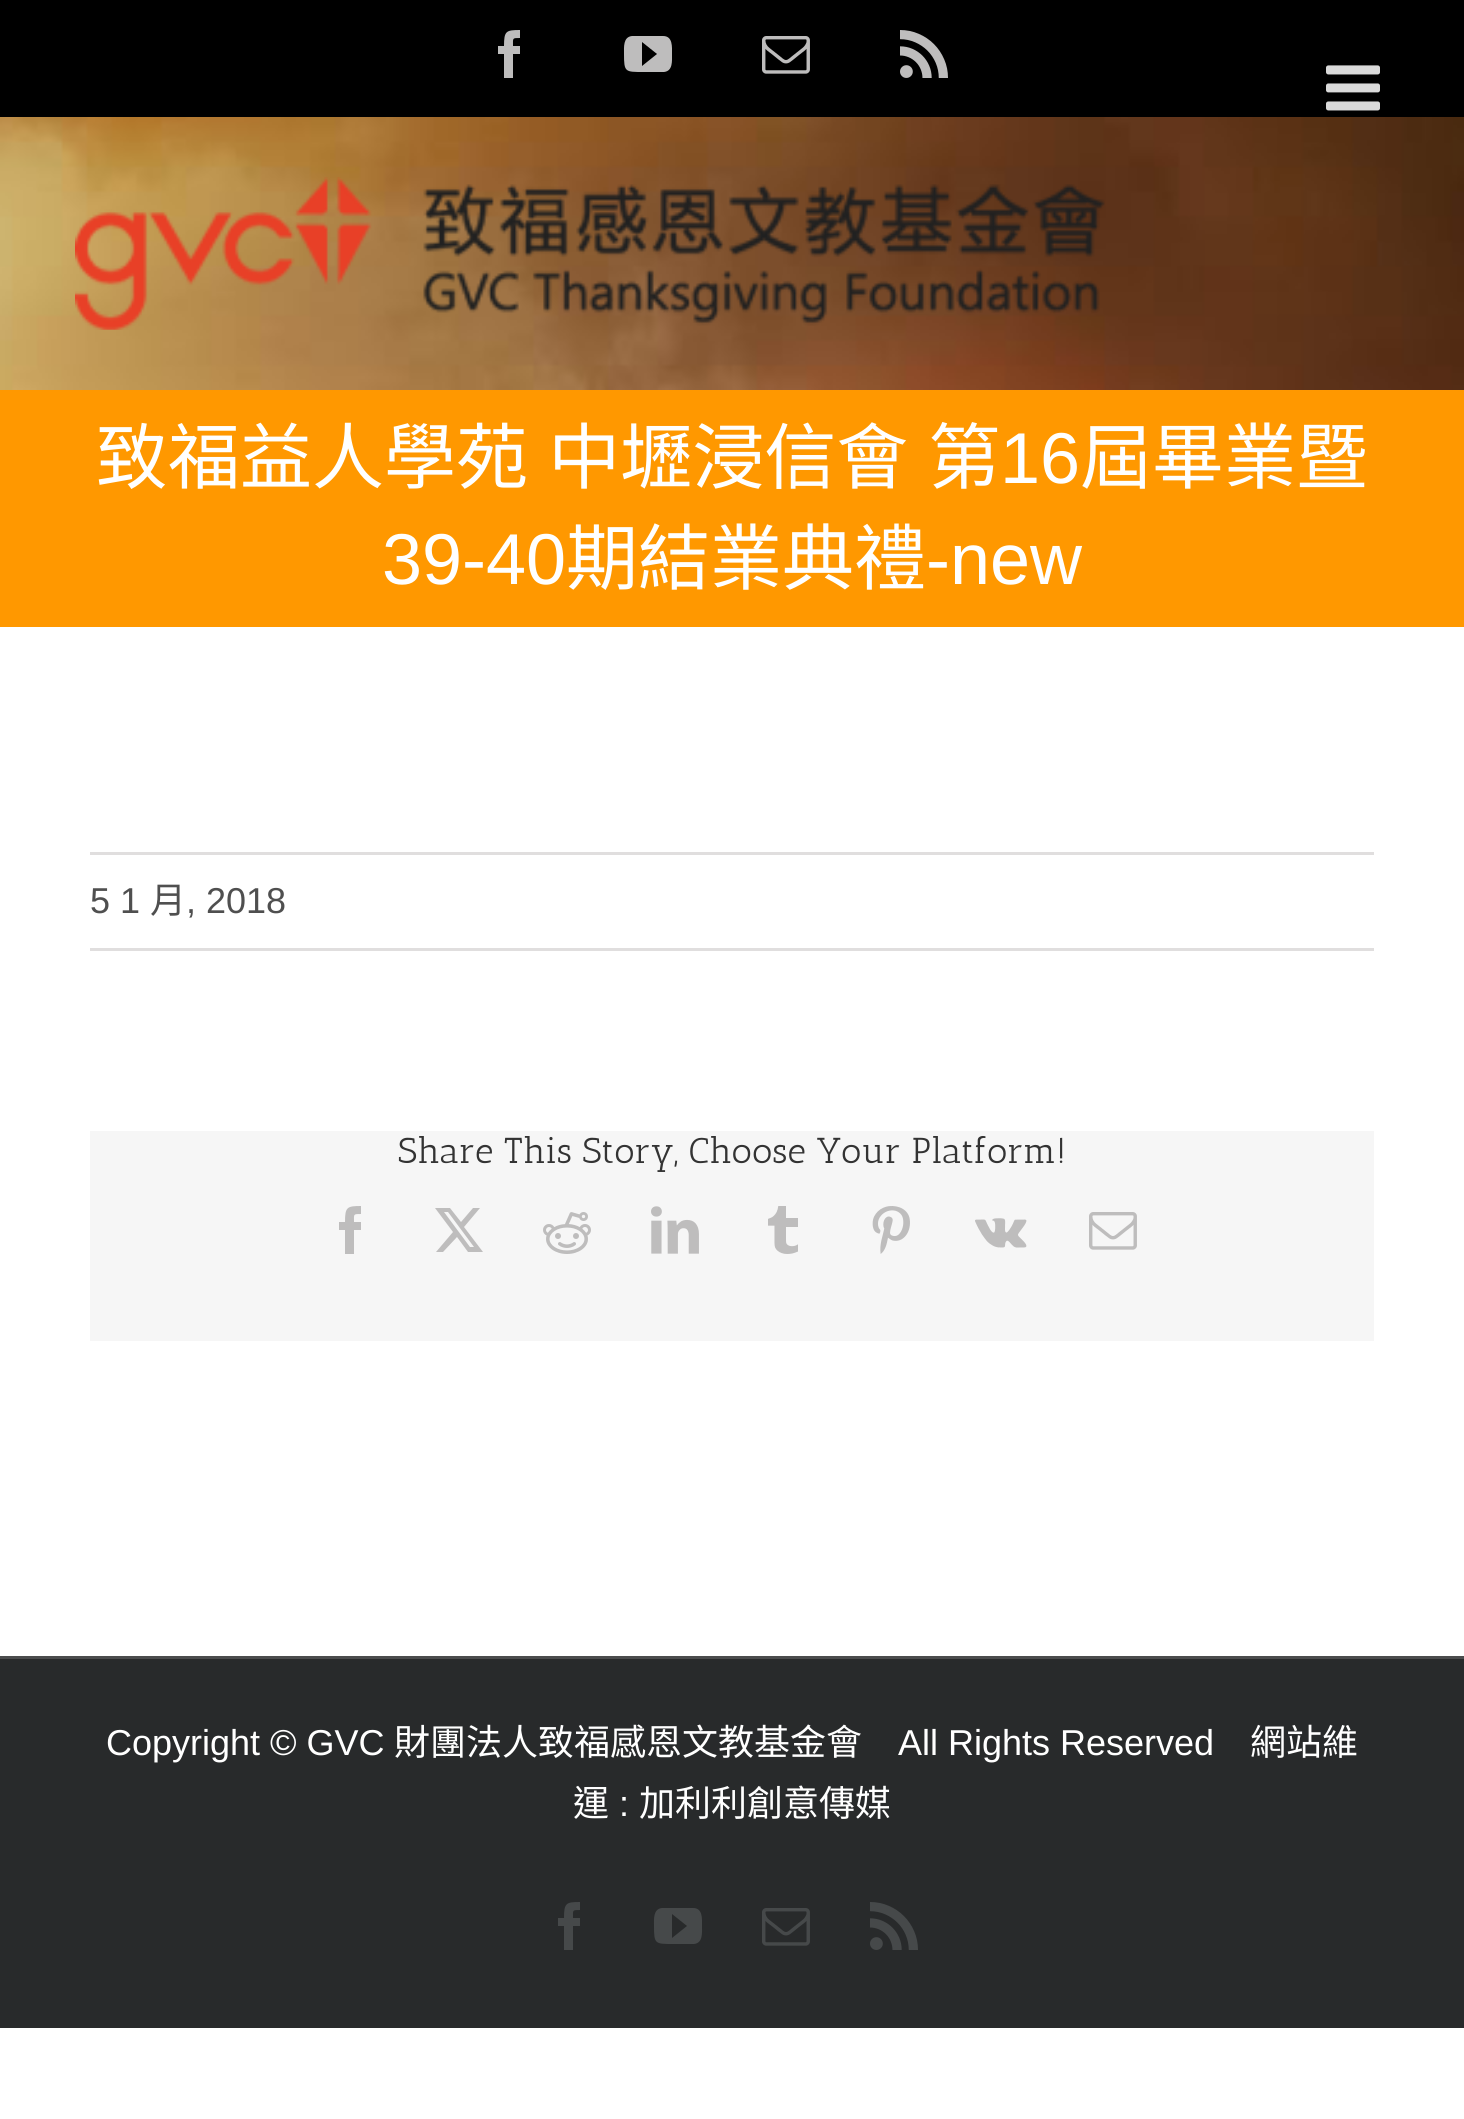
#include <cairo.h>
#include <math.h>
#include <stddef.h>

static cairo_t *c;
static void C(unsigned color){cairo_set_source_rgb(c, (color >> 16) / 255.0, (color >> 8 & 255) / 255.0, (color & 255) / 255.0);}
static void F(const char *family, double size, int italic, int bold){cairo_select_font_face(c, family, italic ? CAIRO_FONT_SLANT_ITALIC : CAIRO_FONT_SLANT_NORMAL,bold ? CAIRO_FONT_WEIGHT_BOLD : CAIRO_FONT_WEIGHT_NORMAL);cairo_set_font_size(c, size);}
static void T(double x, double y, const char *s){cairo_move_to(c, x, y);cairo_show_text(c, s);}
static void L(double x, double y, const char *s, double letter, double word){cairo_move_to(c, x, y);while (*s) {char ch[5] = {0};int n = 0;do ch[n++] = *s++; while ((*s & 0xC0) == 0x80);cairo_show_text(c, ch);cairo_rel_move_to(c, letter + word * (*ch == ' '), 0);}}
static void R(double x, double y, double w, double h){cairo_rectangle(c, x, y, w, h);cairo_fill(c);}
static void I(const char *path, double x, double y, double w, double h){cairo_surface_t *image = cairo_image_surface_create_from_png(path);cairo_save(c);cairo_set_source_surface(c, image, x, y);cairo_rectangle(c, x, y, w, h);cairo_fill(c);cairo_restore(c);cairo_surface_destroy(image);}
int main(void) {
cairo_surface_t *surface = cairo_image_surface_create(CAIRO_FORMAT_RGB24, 1464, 2119);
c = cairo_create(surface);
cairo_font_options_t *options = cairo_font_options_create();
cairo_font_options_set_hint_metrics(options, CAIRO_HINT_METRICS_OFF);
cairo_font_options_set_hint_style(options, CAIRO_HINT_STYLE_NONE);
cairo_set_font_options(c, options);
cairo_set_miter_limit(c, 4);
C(0xffffff);
cairo_paint(c);
C(0x000000);
R(0,0,1464,117);
C(0xbebdbd);
cairo_new_path(c);
cairo_move_to(c,513,78);
cairo_line_to(c,504,78);
cairo_line_to(c,504,54);
cairo_line_to(c,498,54);
cairo_line_to(c,498,46);
cairo_line_to(c,504,46);
cairo_curve_to(c,504,31,506,30,520,30);
cairo_line_to(c,520,38);
cairo_curve_to(c,512,38,513,38,513,46);
cairo_line_to(c,520,46);
cairo_line_to(c,520,54);
cairo_line_to(c,513,54);
cairo_close_path(c);
cairo_fill(c);
cairo_new_path(c);
cairo_move_to(c,663,36);
cairo_line_to(c,632,36);
cairo_curve_to(c,623,37,624,47,624,54);
cairo_curve_to(c,624,72,625,72,643,72);
cairo_line_to(c,664,72);
cairo_curve_to(c,673,71,672,61,672,54);
cairo_curve_to(c,672,47,673,36,663,36);
cairo_close_path(c);
cairo_move_to(c,642,66);
cairo_line_to(c,642,42);
cairo_line_to(c,657,54);
cairo_close_path(c);
cairo_fill(c);
I("1.png",762,36,48,38);
I("2.png",900,30,48,48);
I("3.png",0,117,1464,273);
I("4.png",1326,65,54,46);
I("5.png",75,177,1030,153);
C(0xff9800);
R(0,390,1464,237);
F("Noto Sans CJK TC",72,0,0);
C(0xffffff);
L(96,483,"致福益人學苑 中壢浸信會 第",0,4);
F("Liberation Sans",72,0,0);
T(1000,483,"16");
F("Noto Sans CJK TC",72,0,0);
T(1080,483,"屆畢業暨");
F("Liberation Sans",72,0,0);
T(382,584,"39-40");
F("Noto Sans CJK TC",72,0,0);
T(566,584,"期結業典禮");
F("Liberation Sans",72,0,0);
T(926,584,"-new");
C(0xe0dede);
R(90,852,1284,3);
R(90,948,1284,3);
F("Liberation Sans",36,0,0);
C(0x4f4f4f);
T(90,913,"5 1");
F("Noto Sans CJK TC",36,0,0);
T(150,913,"月");
F("Liberation Sans",36,0,0);
T(186,913,", 2018");
C(0xf6f6f6);
R(90,1131,1284,210);
F("Antic Slab",36,0,0);
C(0x333333);
T(398,1163,"Share This Story, Choose Your Platform!");
C(0xbebdbd);
cairo_new_path(c);
cairo_move_to(c,354,1254);
cairo_line_to(c,345,1254);
cairo_line_to(c,345,1230);
cairo_line_to(c,339,1230);
cairo_line_to(c,339,1222);
cairo_line_to(c,345,1222);
cairo_curve_to(c,345,1207,347,1206,361,1206);
cairo_line_to(c,361,1214);
cairo_curve_to(c,353,1214,354,1214,354,1222);
cairo_line_to(c,361,1222);
cairo_line_to(c,361,1230);
cairo_line_to(c,354,1230);
cairo_close_path(c);
cairo_fill(c);
cairo_new_path(c);
cairo_move_to(c,473,1208);
cairo_line_to(c,480,1208);
cairo_line_to(c,464,1227);
cairo_line_to(c,483,1252);
cairo_line_to(c,468,1252);
cairo_line_to(c,457,1237);
cairo_line_to(c,443,1252);
cairo_line_to(c,436,1252);
cairo_line_to(c,453,1232);
cairo_line_to(c,435,1208);
cairo_line_to(c,450,1208);
cairo_line_to(c,461,1222);
cairo_close_path(c);
cairo_move_to(c,470,1247);
cairo_line_to(c,474,1247);
cairo_line_to(c,448,1212);
cairo_line_to(c,444,1212);
cairo_close_path(c);
cairo_fill(c);
I("6.png",543,1212,48,42);
I("7.png",651,1206,48,48);
I("8.png",768,1206,30,48);
I("9.png",872,1206,38,48);
I("10.png",975,1218,52,30);
I("11.png",1089,1212,48,38);
C(0x282a2b);
R(0,1659,1464,369);
C(0x4b4c4d);
R(0,1656,1464,3);
F("Liberation Sans",36,0,0);
C(0xffffff);
T(106,1755,"Copyright © GVC");
F("Noto Sans CJK TC",36,0,0);
T(394,1755,"財團法人致福感恩文教基金會");
F("Liberation Sans",36,0,0);
T(898,1755,"All Rights Reserved");
F("Noto Sans CJK TC",36,0,0);
T(1250,1755,"網站維");
T(573,1816,"運");
F("Liberation Sans",36,0,0);
T(619,1816,":");
F("Noto Sans CJK TC",36,0,0);
T(639,1816,"加利利創意傳媒");
C(0x46494a);
cairo_new_path(c);
cairo_move_to(c,573,1950);
cairo_line_to(c,564,1950);
cairo_line_to(c,564,1926);
cairo_line_to(c,558,1926);
cairo_line_to(c,558,1918);
cairo_line_to(c,564,1918);
cairo_curve_to(c,564,1903,566,1902,580,1902);
cairo_line_to(c,580,1910);
cairo_curve_to(c,572,1910,573,1910,573,1918);
cairo_line_to(c,580,1918);
cairo_line_to(c,580,1926);
cairo_line_to(c,573,1926);
cairo_close_path(c);
cairo_fill(c);
cairo_new_path(c);
cairo_move_to(c,693,1908);
cairo_line_to(c,662,1908);
cairo_curve_to(c,653,1909,654,1919,654,1926);
cairo_curve_to(c,654,1944,655,1944,673,1944);
cairo_line_to(c,694,1944);
cairo_curve_to(c,703,1943,702,1933,702,1926);
cairo_curve_to(c,702,1919,703,1908,693,1908);
cairo_close_path(c);
cairo_move_to(c,672,1938);
cairo_line_to(c,672,1914);
cairo_line_to(c,687,1926);
cairo_close_path(c);
cairo_fill(c);
I("12.png",762,1908,48,38);
I("13.png",870,1902,48,48);
cairo_surface_write_to_png(surface, "o.png");
cairo_font_options_destroy(options);
cairo_destroy(c);
cairo_surface_destroy(surface);
return 0;
}
